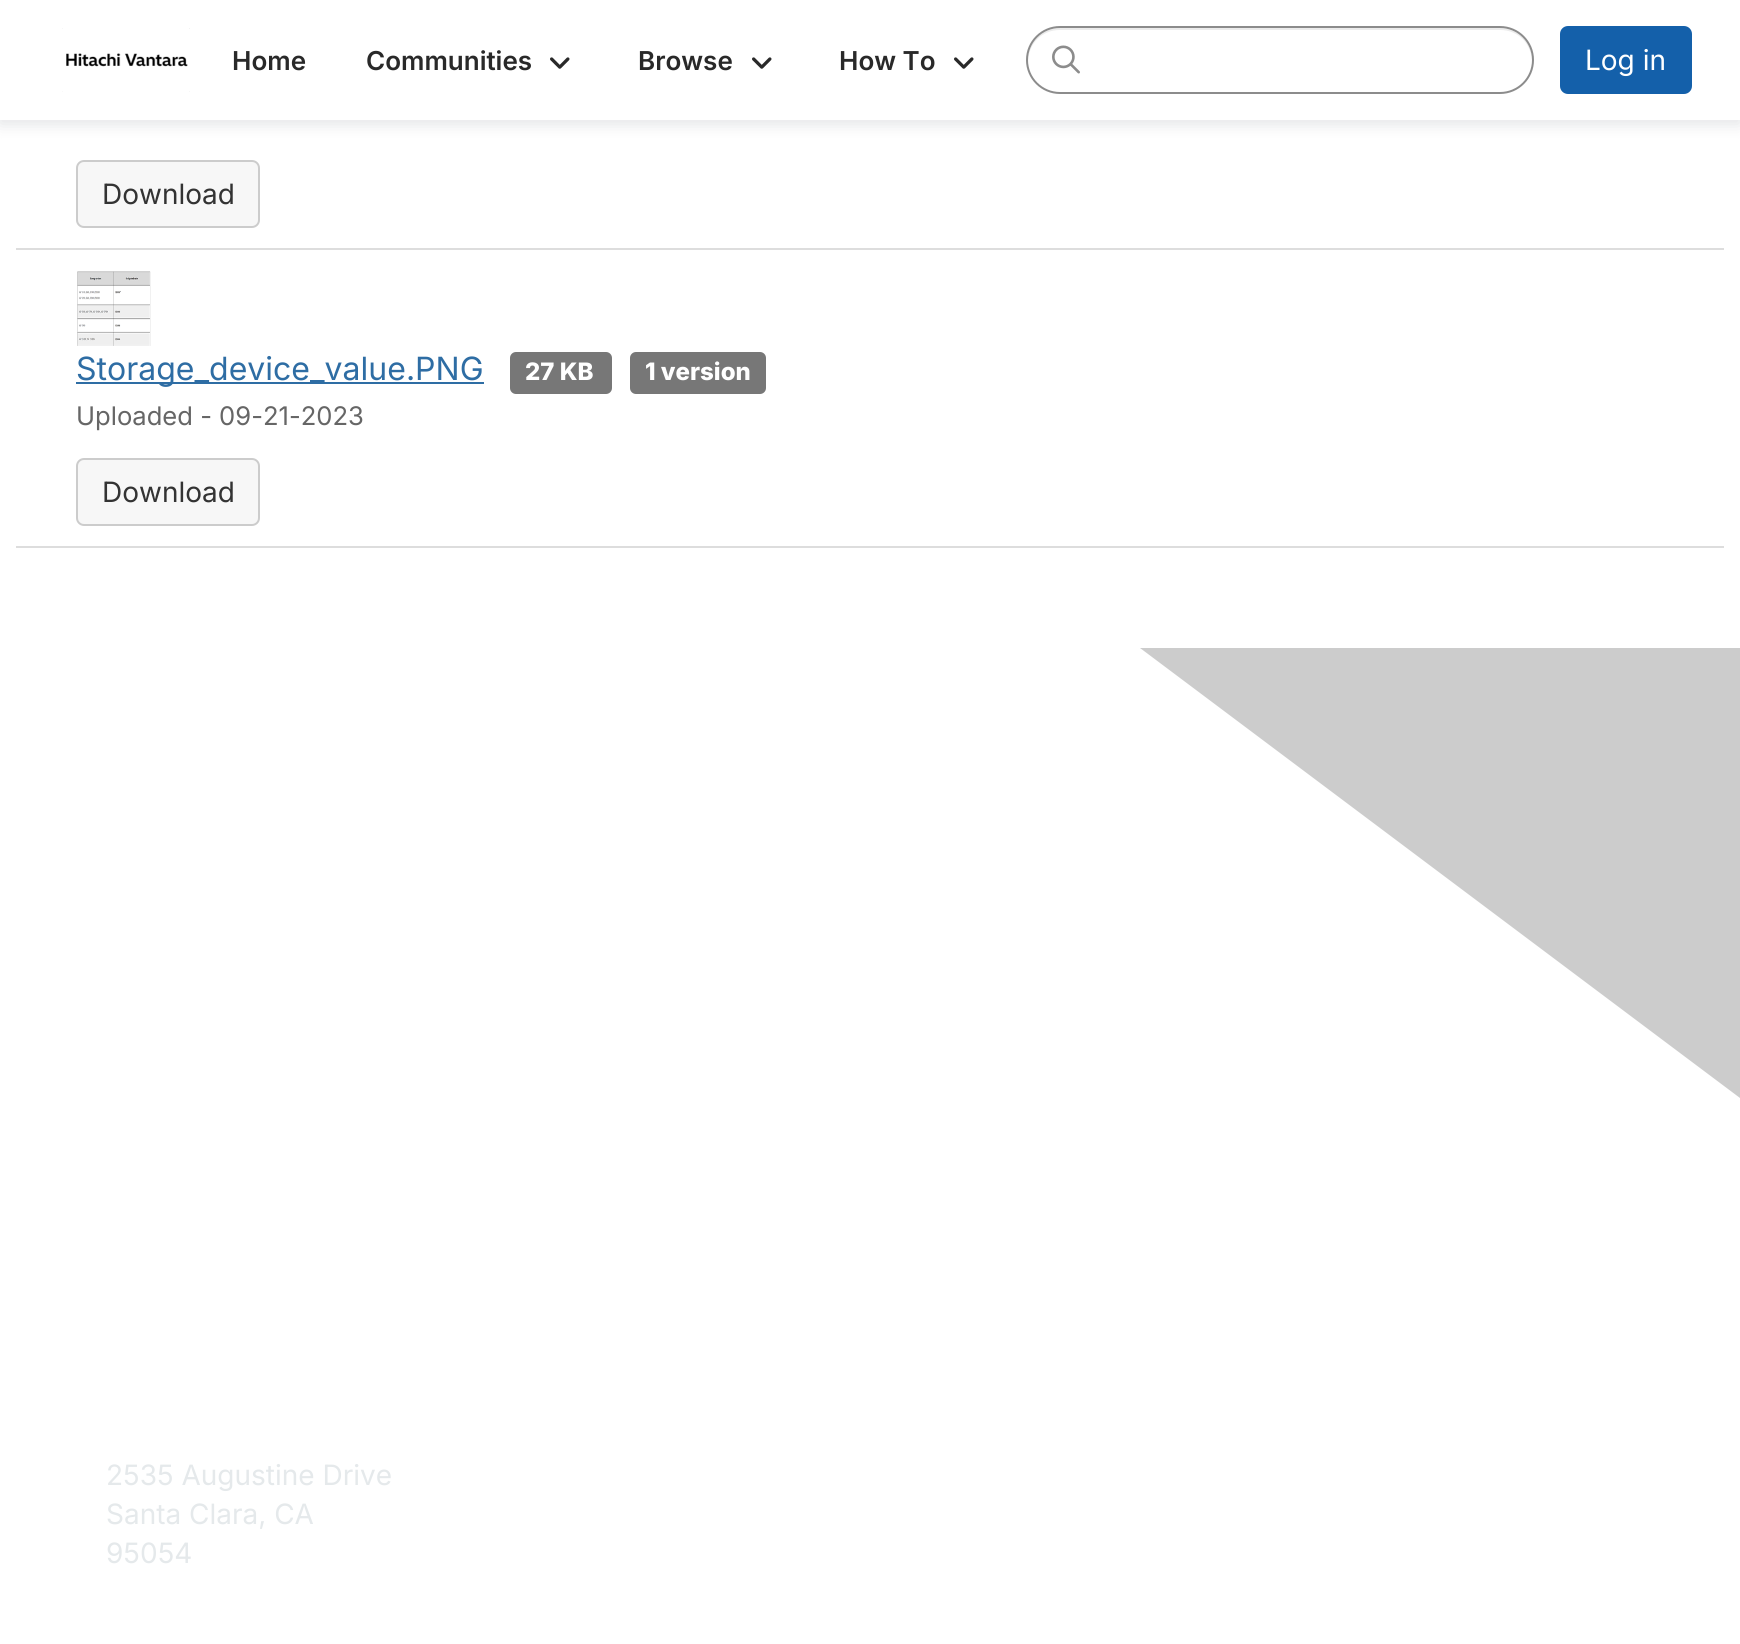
#include <cairo.h>
#include <math.h>
#include <stddef.h>

static cairo_t *c;
static void C(unsigned color){cairo_set_source_rgb(c, (color >> 16) / 255.0, (color >> 8 & 255) / 255.0, (color & 255) / 255.0);}
static void F(const char *family, double size, int italic, int bold){cairo_select_font_face(c, family, italic ? CAIRO_FONT_SLANT_ITALIC : CAIRO_FONT_SLANT_NORMAL,bold ? CAIRO_FONT_WEIGHT_BOLD : CAIRO_FONT_WEIGHT_NORMAL);cairo_set_font_size(c, size);}
static void T(double x, double y, const char *s){cairo_move_to(c, x, y);cairo_show_text(c, s);}
static void R(double x, double y, double w, double h){cairo_rectangle(c, x, y, w, h);cairo_fill(c);}
static void Q(double x, double y, double w, double h, double r){cairo_new_sub_path(c);cairo_arc(c, x + w - r, y + h - r, r, 0, M_PI / 2);cairo_arc(c, x + r, y + h - r, r, M_PI / 2, M_PI);cairo_arc(c, x + r, y + r, r, M_PI, 1.5 * M_PI);cairo_arc(c, x + w - r, y + r, r, 1.5 * M_PI, 2 * M_PI);cairo_close_path(c);}
static void S(double x, double y, double w, double h, double r, double blur, double alpha){cairo_push_group_with_content(c, CAIRO_CONTENT_ALPHA);cairo_set_operator(c, CAIRO_OPERATOR_SOURCE);for (int i = 15; i >= -15 && fmin(w, h) + blur * i / 3 > 0; i -= 2) {double e = blur * i / 6;cairo_set_source_rgba(c, 0, 0, 0, alpha * erfc((i - 1) / 8.5) / 2);Q(x - e, y - e, w + 2 * e, h + 2 * e, fmax(0, fmin(r + e + blur * .6, fmin(w, h) / 2 + e)));cairo_fill(c);}cairo_pattern_t *soft = cairo_pop_group(c);cairo_mask(c, soft);cairo_pattern_destroy(soft);}
static void I(const char *path, double x, double y, double w, double h){cairo_surface_t *image = cairo_image_surface_create_from_png(path);cairo_save(c);cairo_set_source_surface(c, image, x, y);cairo_rectangle(c, x, y, w, h);cairo_fill(c);cairo_restore(c);cairo_surface_destroy(image);}
int main(void) {
cairo_surface_t *surface = cairo_image_surface_create(CAIRO_FORMAT_RGB24, 1740, 1644);
c = cairo_create(surface);
cairo_font_options_t *options = cairo_font_options_create();
cairo_font_options_set_hint_metrics(options, CAIRO_HINT_METRICS_OFF);
cairo_font_options_set_hint_style(options, CAIRO_HINT_STYLE_NONE);
cairo_set_font_options(c, options);
cairo_set_miter_limit(c, 4);
C(0xffffff);
cairo_paint(c);
C(0x838791);
S(0,4,1740,120,0,8,.24);
C(0xffffff);
R(0,0,1740,120);
I("1.png",62,28,128,64);
F("Inter SemiBold",26,0,0);
C(0x292929);
T(232,70,"Home");
T(366,70,"Communities");
I("2.png",550,57,20,12);
T(638,70,"Browse");
I("2.png",752,57,20,12);
T(839,70,"How To");
I("2.png",954,57,20,12);
C(0xececec);
cairo_new_path(c);
cairo_move_to(c,1060,30);
cairo_line_to(c,1500,30);
cairo_curve_to(c,1518,30,1531,43,1532,61);
cairo_curve_to(c,1533,43,1518,28,1500,28);
cairo_line_to(c,1060,28);
cairo_curve_to(c,1042,28,1027,43,1028,61);
cairo_curve_to(c,1029,43,1042,30,1060,30);
cairo_close_path(c);
cairo_fill(c);
Q(1027,27,506,66,33);
C(0x8c8c8c);
cairo_stroke(c);
I("3.png",1052,45,28,29);
C(0x1460aa);
Q(1561,27,130,66,7);
cairo_fill_preserve(c);
cairo_stroke(c);
F("Inter",28,0,0);
C(0xffffff);
T(1585,70,"Log in");
C(0xdddddd);
R(16,248,1708,2);
C(0xf7f7f7);
Q(77,161,182,66,7);
cairo_fill_preserve(c);
C(0xcccccc);
cairo_stroke(c);
C(0x333333);
T(102,204,"Download");
C(0xdddddd);
R(16,546,1708,2);
I("4.png",77,271,74,75);
C(0x2e6da4);
R(76,382,408,2);
F("Inter",32,0,0);
T(76,380,"Storage_device_value.PNG");
C(0x777777);
Q(510,352,102,42,6);
cairo_fill(c);
F("Inter ExtraBold",24,0,0);
C(0xffffff);
T(525,380,"27 KB");
C(0x777777);
Q(630,352,136,42,6);
cairo_fill(c);
C(0xffffff);
T(645,380,"1 version");
F("Inter",25.6,0,0);
C(0x666666);
T(76,425,"Uploaded - 09-21-2023");
C(0xf7f7f7);
Q(77,459,182,66,7);
cairo_fill_preserve(c);
C(0xcccccc);
cairo_stroke(c);
F("Inter",28,0,0);
C(0x333333);
T(102,502,"Download");
C(0xcccccc);
cairo_new_path(c);
cairo_move_to(c,1740,648);
cairo_line_to(c,1740,1098);
cairo_line_to(c,1140,648);
cairo_close_path(c);
cairo_fill(c);
C(0xe5e9eb);
T(106,1485,"2535 Augustine Drive");
T(106,1524,"Santa Clara, CA");
T(106,1563,"95054");
cairo_surface_write_to_png(surface, "o.png");
cairo_font_options_destroy(options);
cairo_destroy(c);
cairo_surface_destroy(surface);
return 0;
}
